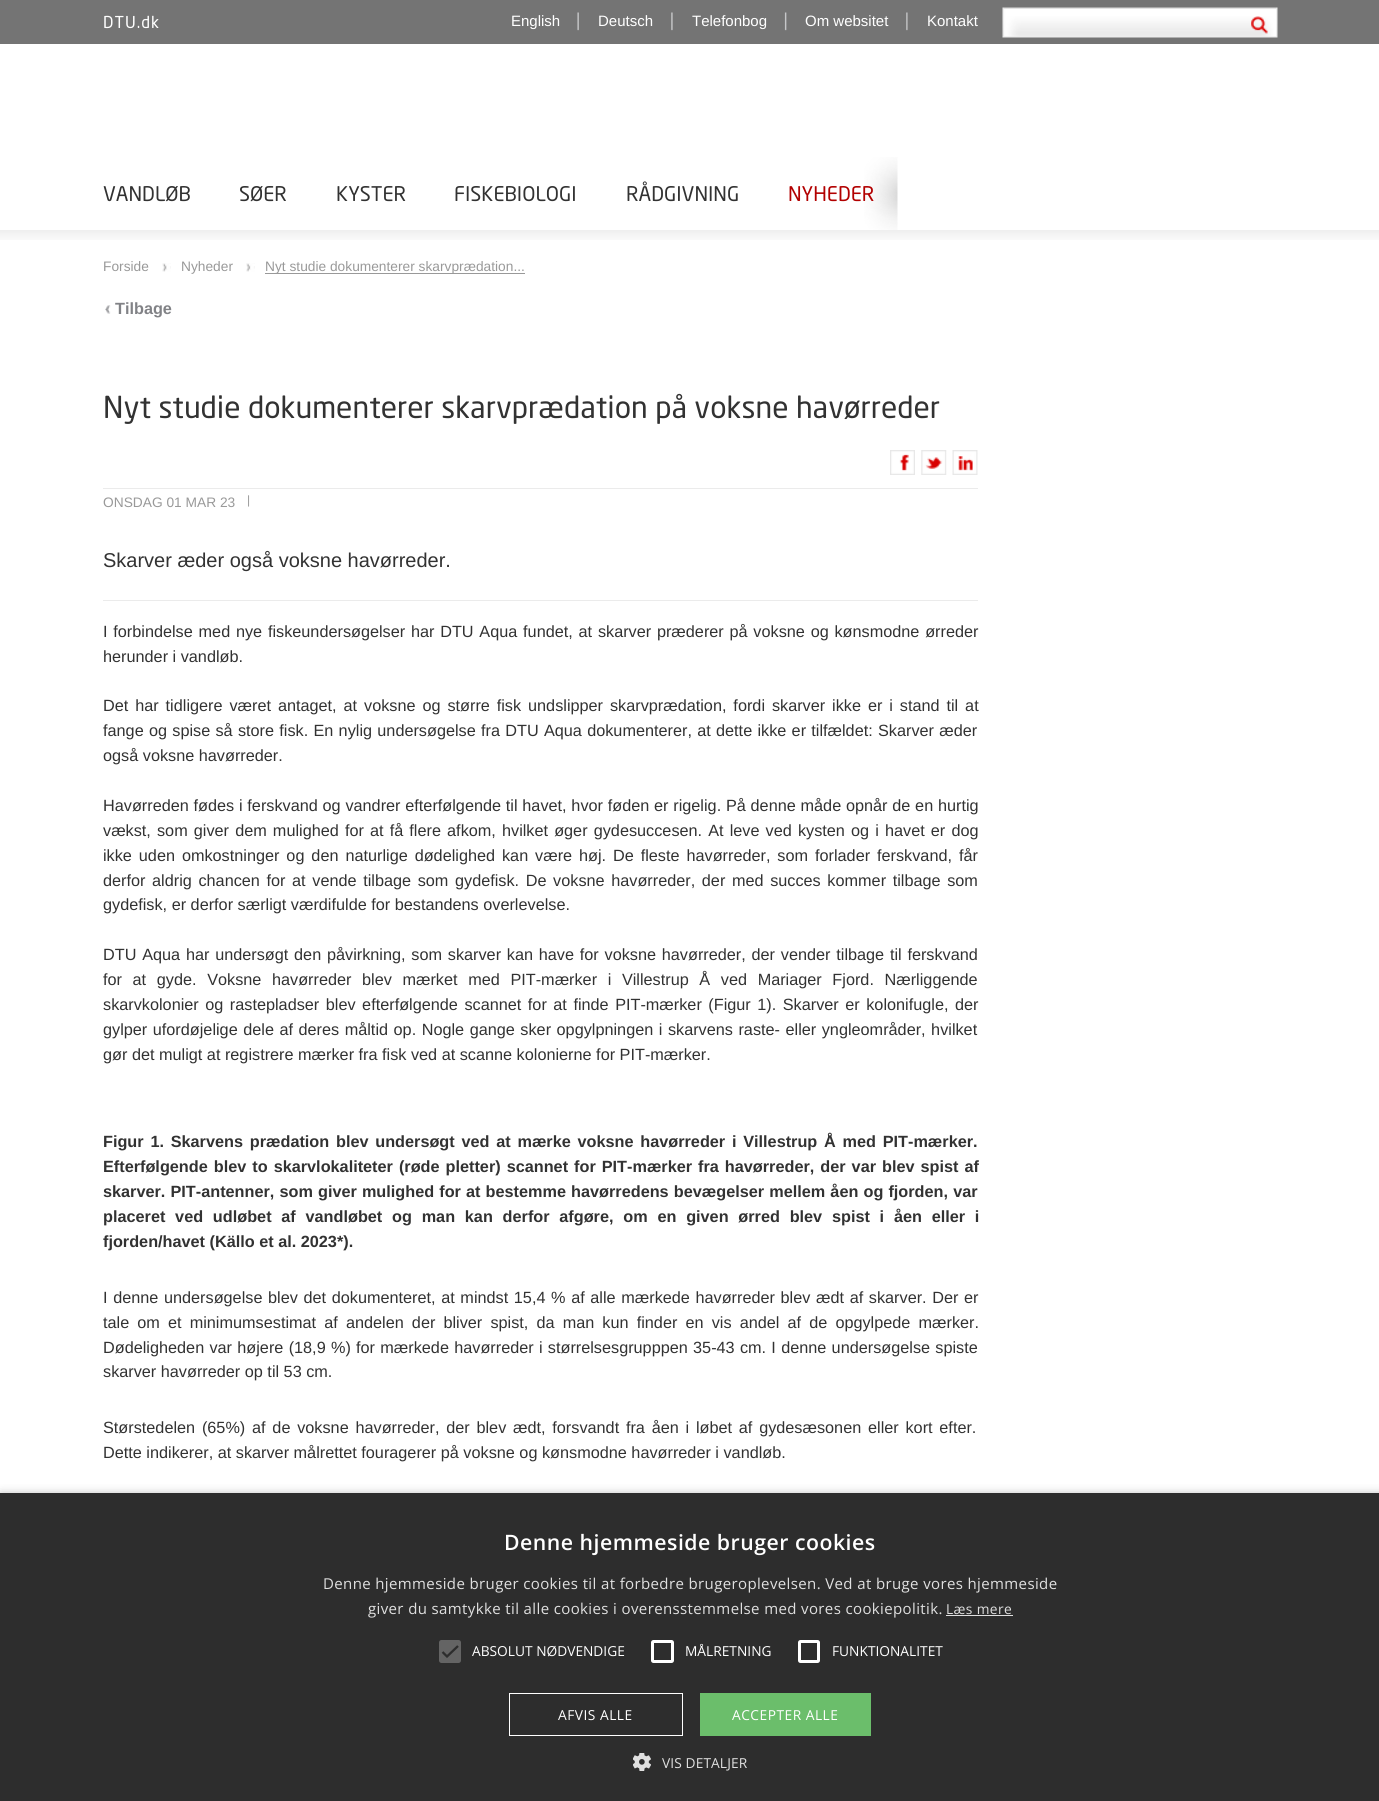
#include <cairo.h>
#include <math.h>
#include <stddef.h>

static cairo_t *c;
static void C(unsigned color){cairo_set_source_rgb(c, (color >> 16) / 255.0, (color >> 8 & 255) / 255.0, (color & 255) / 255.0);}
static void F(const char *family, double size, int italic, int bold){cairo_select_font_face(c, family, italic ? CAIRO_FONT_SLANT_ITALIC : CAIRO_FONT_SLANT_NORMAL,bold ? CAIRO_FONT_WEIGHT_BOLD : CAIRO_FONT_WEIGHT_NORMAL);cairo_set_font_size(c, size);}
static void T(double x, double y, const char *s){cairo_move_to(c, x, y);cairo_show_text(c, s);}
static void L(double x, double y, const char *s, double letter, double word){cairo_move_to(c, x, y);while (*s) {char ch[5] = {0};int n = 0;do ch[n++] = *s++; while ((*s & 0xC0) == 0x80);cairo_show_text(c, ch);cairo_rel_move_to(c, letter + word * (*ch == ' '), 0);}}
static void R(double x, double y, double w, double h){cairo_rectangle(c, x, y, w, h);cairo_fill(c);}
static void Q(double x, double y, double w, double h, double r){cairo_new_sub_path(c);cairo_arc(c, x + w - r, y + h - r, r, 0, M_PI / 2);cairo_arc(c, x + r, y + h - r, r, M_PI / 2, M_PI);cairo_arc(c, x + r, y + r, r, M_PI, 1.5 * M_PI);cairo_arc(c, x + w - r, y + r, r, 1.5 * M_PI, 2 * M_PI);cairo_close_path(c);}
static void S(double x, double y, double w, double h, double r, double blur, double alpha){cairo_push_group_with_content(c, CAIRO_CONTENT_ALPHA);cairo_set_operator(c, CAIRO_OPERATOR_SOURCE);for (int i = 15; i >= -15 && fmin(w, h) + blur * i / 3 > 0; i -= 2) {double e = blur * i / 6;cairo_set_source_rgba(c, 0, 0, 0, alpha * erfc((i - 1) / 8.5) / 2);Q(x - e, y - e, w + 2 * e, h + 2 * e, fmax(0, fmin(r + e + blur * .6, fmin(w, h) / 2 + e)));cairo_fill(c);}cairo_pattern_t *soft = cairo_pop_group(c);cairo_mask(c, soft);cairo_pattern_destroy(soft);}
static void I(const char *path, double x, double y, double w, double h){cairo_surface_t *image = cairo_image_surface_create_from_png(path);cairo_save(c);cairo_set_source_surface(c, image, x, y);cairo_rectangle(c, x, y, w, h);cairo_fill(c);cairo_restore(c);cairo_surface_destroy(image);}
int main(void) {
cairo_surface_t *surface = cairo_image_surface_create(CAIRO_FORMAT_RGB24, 1379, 1801);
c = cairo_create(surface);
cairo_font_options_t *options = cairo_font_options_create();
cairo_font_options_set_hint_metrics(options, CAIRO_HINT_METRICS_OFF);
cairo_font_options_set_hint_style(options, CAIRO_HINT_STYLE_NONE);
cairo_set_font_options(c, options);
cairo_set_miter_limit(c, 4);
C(0xffffff);
cairo_paint(c);
C(0x747474);
R(0,0,1379,44);
F("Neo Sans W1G",16.25,0,0);
C(0xffffff);
L(103,28,"DTU.dk",1,0);
F("Liberation Sans",15,0,0);
T(511,26,"English");
I("1.png",577,12,2,19);
T(598,26,"Deutsch");
I("2.png",671,12,2,19);
T(692,26,"Telefonbog");
I("3.png",784,12,3,19);
T(805,26,"Om websitet");
I("4.png",906,12,2,19);
T(927,26,"Kontakt");
I("5.png",1002,7,276,31);
I("6.png",1251,16,17,18);
F("Neo Sans W1G",20,0,0);
C(0x323232);
T(103,201,"VANDLØB");
T(239,201,"SØER");
T(336,201,"KYSTER");
T(454,201,"FISKEBIOLOGI");
T(626,201,"RÅDGIVNING");
I("7.png",864,157,34,73);
C(0xb20000);
T(788,201,"NYHEDER");
I("8.png",0,230,1379,10);
F("Liberation Sans",13.75,0,0);
C(0x999999);
T(103,271,"Forside");
I("9.png",162,263,9,9);
T(181,271,"Nyheder");
I("10.png",246,263,9,9);
R(265,273,260,1);
T(265,271,"Nyt studie dokumenterer skarvprædation...");
I("11.png",105,305,6,9);
F("Liberation Sans",16.25,0,1);
C(0x818286);
T(115,314,"Tilbage");
F("Neo Sans W1G",30,0,0);
C(0x323232);
T(103,418,"Nyt studie dokumenterer skarvprædation på voksne havørreder");
C(0xebebeb);
R(103,488,875,1);
I("12.png",890,450,25,25);
I("13.png",921,450,26,25);
I("14.png",952,450,26,25);
F("Liberation Sans",13.75,0,0);
C(0x999999);
T(103,507,"ONSDAG 01 MAR 23");
F("Liberation Sans",12,0,0);
T(247,504,"|");
C(0xebebeb);
R(103,600,875,1);
F("Liberation Sans",20,0,0);
C(0x323232);
T(103,567,"Skarver æder også voksne havørreder.");
F("Liberation Sans",16.25,0,0);
L(103,637,"I forbindelse med nye fiskeundersøgelser har DTU Aqua fundet, at skarver præderer på voksne og kønsmodne ørreder",0,1.25);
T(103,662,"herunder i vandløb.");
L(103,711,"Det har tidligere været antaget, at voksne og større fisk undslipper skarvprædation, fordi skarver ikke er i stand til at",0,2.4);
L(103,736,"fange og spise så store fisk. En nylig undersøgelse fra DTU Aqua dokumenterer, at dette ikke er tilfældet: Skarver æder",0,.75);
T(103,761,"også voksne havørreder.");
L(103,811,"Havørreden fødes i ferskvand og vandrer efterfølgende til havet, hvor føden er rigelig. På denne måde opnår de en hurtig",0,.25);
L(103,836,"vækst, som giver dem mulighed for at få flere afkom, hvilket øger gydesuccesen. At leve ved kysten og i havet er dog",0,1.6);
L(103,861,"ikke uden omkostninger og den naturlige dødelighed kan være høj. De fleste havørreder, som forlader ferskvand, får",0,2.4);
L(103,886,"derfor aldrig chancen for at vende tilbage som gydefisk. De voksne havørreder, der med succes kommer tilbage som",0,2.1);
T(103,910,"gydefisk, er derfor særligt værdifulde for bestandens overlevelse.");
L(103,960,"DTU Aqua har undersøgt den påvirkning, som skarver kan have for voksne havørreder, der vender tilbage til ferskvand",0,1.25);
L(103,985,"for at gyde. Voksne havørreder blev mærket med PIT-mærker i Villestrup Å ved Mariager Fjord. Nærliggende",0,6.1);
L(103,1010,"skarvkolonier og rastepladser blev efterfølgende scannet for at finde PIT-mærker (Figur 1). Skarver er kolonifugle, der",0,2);
L(103,1035,"gylper ufordøjelige dele af deres måltid op. Nogle gange sker opgylpningen i skarvens raste- eller yngleområder, hvilket",0,1);
T(103,1060,"gør det muligt at registrere mærker fra fisk ved at scanne kolonierne for PIT-mærker.");
F("Liberation Sans",16.25,0,1);
L(103,1147,"Figur 1. Skarvens prædation blev undersøgt ved at mærke voksne havørreder i Villestrup Å med PIT-mærker.",0,2.25);
L(103,1172,"Efterfølgende blev to skarvlokaliteter (røde pletter) scannet for PIT-mærker fra havørreder, der var blev spist af",0,1.5);
L(103,1197,"skarver. PIT-antenner, som giver mulighed for at bestemme havørredens bevægelser mellem åen og fjorden, var",0,.6);
L(103,1222,"placeret ved udløbet af vandløbet og man kan derfor afgøre, om en given ørred blev spist i åen eller i",0,5.25);
T(103,1247,"fjorden/havet (Källo et al. 2023*).");
F("Liberation Sans",16.25,0,0);
L(103,1303,"I denne undersøgelse blev det dokumenteret, at mindst 15,4 % af alle mærkede havørreder blev ædt af skarver. Der er",0,1.1);
L(103,1328,"tale om et minimumsestimat af andelen der bliver spist, da man kun finder en vis andel af de opgylpede mærker.",0,3.6);
L(103,1353,"Dødeligheden var højere (18,9 %) for mærkede havørreder i størrelsesgrupppen 35-43 cm. I denne undersøgelse spiste",0,.75);
T(103,1377,"skarver havørreder op til 53 cm.");
L(103,1433,"Størstedelen (65%) af de voksne havørreder, der blev ædt, forsvandt fra åen i løbet af gydesæsonen eller kort efter.",0,2.25);
T(103,1458,"Dette indikerer, at skarver målrettet fouragerer på voksne og kønsmodne havørreder i vandløb.");
C(0x000000);
S(1,1495,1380,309,0,5,.35);
C(0x2d2d2d);
R(0,1493,1379,308);
F("Open Sans SemiBold",21.25,0,0);
C(0xffffff);
L(504,1550,"Denne hjemmeside bruger cookies",.5,0);
F("Open Sans",15,0,0);
C(0xe0e0e0);
L(323,1589,"Denne hjemmeside bruger cookies til at forbedre brugeroplevelsen. Ved at bruge vores hjemmeside",.38,0);
L(368,1614,"giver du samtykke til alle cookies i overensstemmelse med vores cookiepolitik.",.38,0);
F("Open Sans",13.75,0,0);
L(946,1614,"Læs mere",.38,0);
R(946,1615,67,1);
C(0x646464);
Q(439,1640,22,23,2.5);
cairo_fill(c);
cairo_new_path(c);
cairo_move_to(c,442.5,1652);
cairo_line_to(c,447,1656.5);
cairo_line_to(c,458,1646);
C(0x2d2d2d);
cairo_set_line_width(c,2.3);
cairo_stroke(c);
C(0xffffff);
T(472,1656,"ABSOLUT NØDVENDIGE");
Q(652.5,1641.5,20,20,1);
cairo_set_line_width(c,3);
cairo_stroke(c);
T(685,1656,"MÅLRETNING");
Q(799.5,1641.5,19,20,1);
cairo_stroke(c);
T(832,1656,"FUNKTIONALITET");
cairo_rectangle(c,509.5,1693.5,173,42);
cairo_set_line_width(c,1);
cairo_stroke(c);
L(558,1720,"AFVIS ALLE",.5,0);
C(0x6bbe6b);
R(700,1693,171,43);
C(0xffffff);
L(732,1720,"ACCEPTER ALLE",.5,0);
I("15.png",633,1753,18,18);
C(0xe0e0e0);
L(662,1768,"VIS DETALJER",.1,0);
cairo_surface_write_to_png(surface, "o.png");
cairo_font_options_destroy(options);
cairo_destroy(c);
cairo_surface_destroy(surface);
return 0;
}
